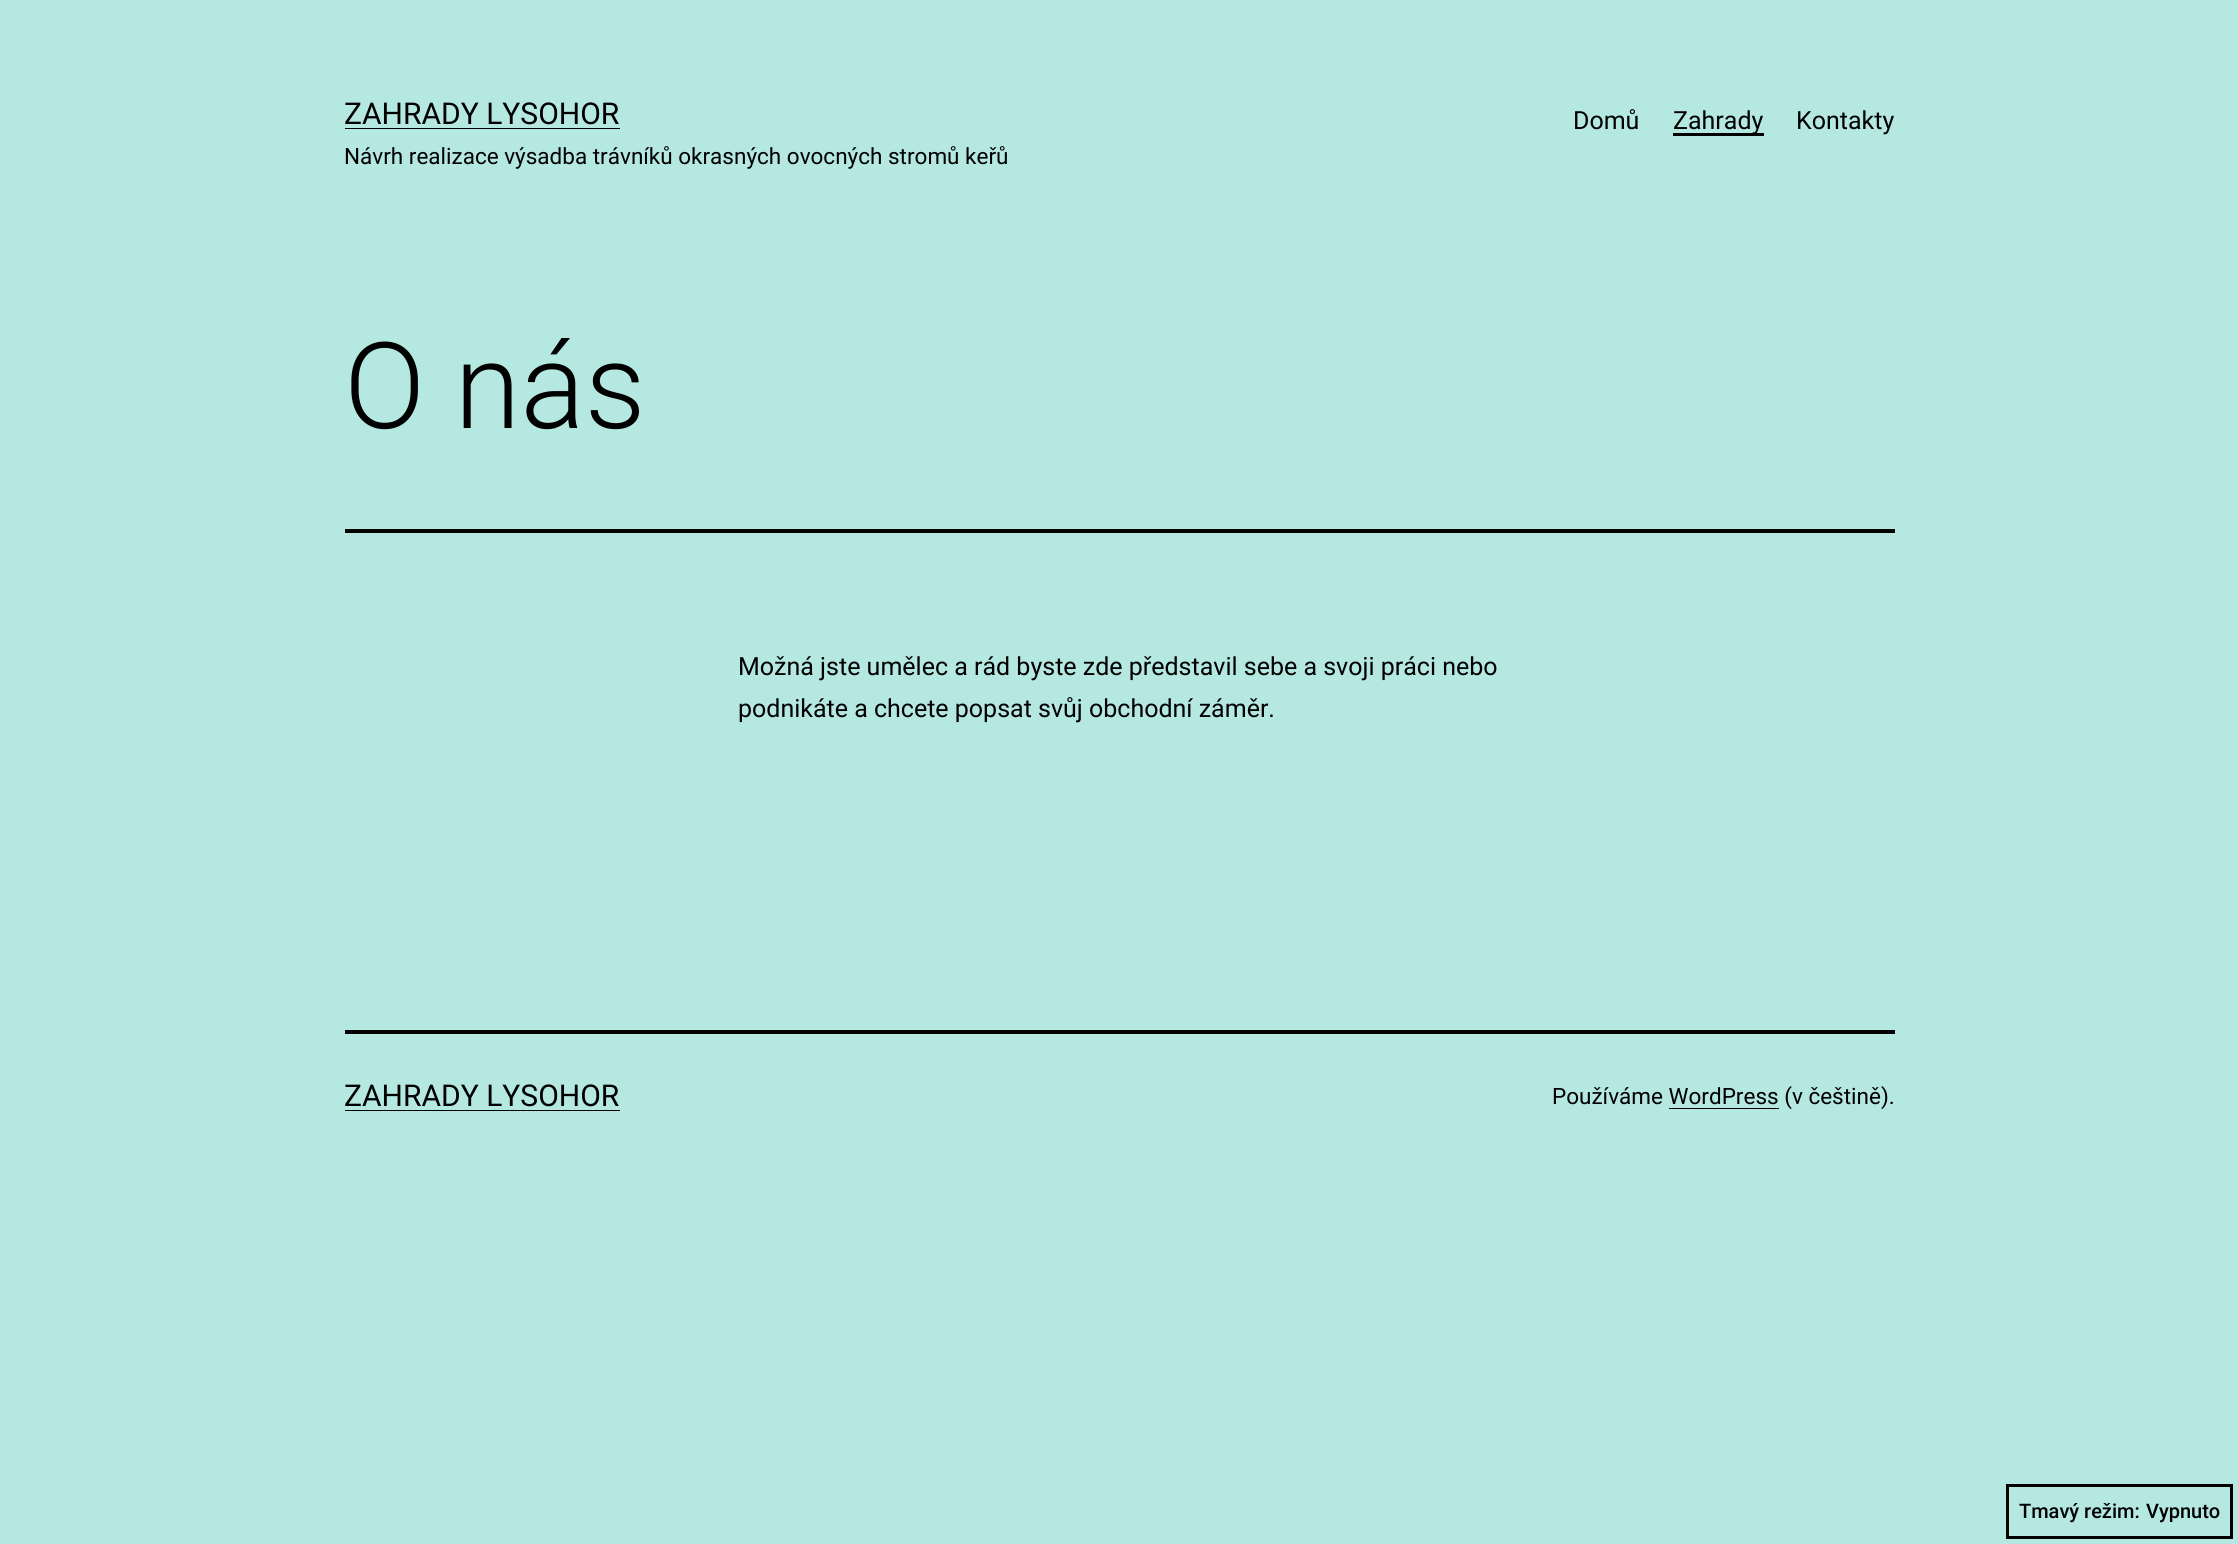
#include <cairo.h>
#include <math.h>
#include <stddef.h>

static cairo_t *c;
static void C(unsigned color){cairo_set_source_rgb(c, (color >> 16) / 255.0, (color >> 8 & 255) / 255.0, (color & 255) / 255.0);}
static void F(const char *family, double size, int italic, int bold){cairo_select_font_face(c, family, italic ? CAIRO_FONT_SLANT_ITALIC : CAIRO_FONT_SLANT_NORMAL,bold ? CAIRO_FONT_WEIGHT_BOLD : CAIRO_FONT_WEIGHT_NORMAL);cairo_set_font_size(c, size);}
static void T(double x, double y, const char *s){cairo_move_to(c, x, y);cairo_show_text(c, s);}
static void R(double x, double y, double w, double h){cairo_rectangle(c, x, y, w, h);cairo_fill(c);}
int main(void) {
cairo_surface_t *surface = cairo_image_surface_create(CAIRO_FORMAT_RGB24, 2238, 1544);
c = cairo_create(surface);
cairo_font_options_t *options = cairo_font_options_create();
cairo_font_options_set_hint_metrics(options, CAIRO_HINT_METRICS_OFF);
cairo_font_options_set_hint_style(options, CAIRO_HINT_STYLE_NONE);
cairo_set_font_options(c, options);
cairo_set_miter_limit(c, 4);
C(0xb4e8e1);
cairo_paint(c);
F("Roboto",30,0,0);
C(0x000000);
T(344,124,"ZAHRADY LYSOHOR");
R(345,128,275,1);
F("Roboto",22.5,0,0);
T(344,164,"Návrh realizace výsadba trávníků okrasných ovocných stromů keřů");
F("Roboto",25,0,0);
T(1573,129,"Domů");
R(1673,133,91,3);
T(1673,129,"Zahrady");
T(1796,129,"Kontakty");
R(345,529,1550,4);
F("Roboto Light",120,0,0);
T(344,428,"O nás");
F("Roboto",25,0,0);
T(738,675,"Možná jste umělec a rád byste zde představil sebe a svoji práci nebo");
T(738,717,"podnikáte a chcete popsat svůj obchodní záměr.");
R(345,1030,1550,4);
F("Roboto",30,0,0);
T(344,1106,"ZAHRADY LYSOHOR");
R(345,1110,275,1);
F("Roboto",22.5,0,0);
T(1552,1104,"Používáme WordPress (v češtině).");
R(1669,1108,110,1);
cairo_rectangle(c,2007.5,1485.5,224,52);
cairo_set_line_width(c,3);
cairo_stroke(c);
F("Roboto Medium",20,0,0);
T(2019,1518,"Tmavý režim:");
T(2146,1518,"Vypnuto");
cairo_surface_write_to_png(surface, "o.png");
cairo_font_options_destroy(options);
cairo_destroy(c);
cairo_surface_destroy(surface);
return 0;
}
